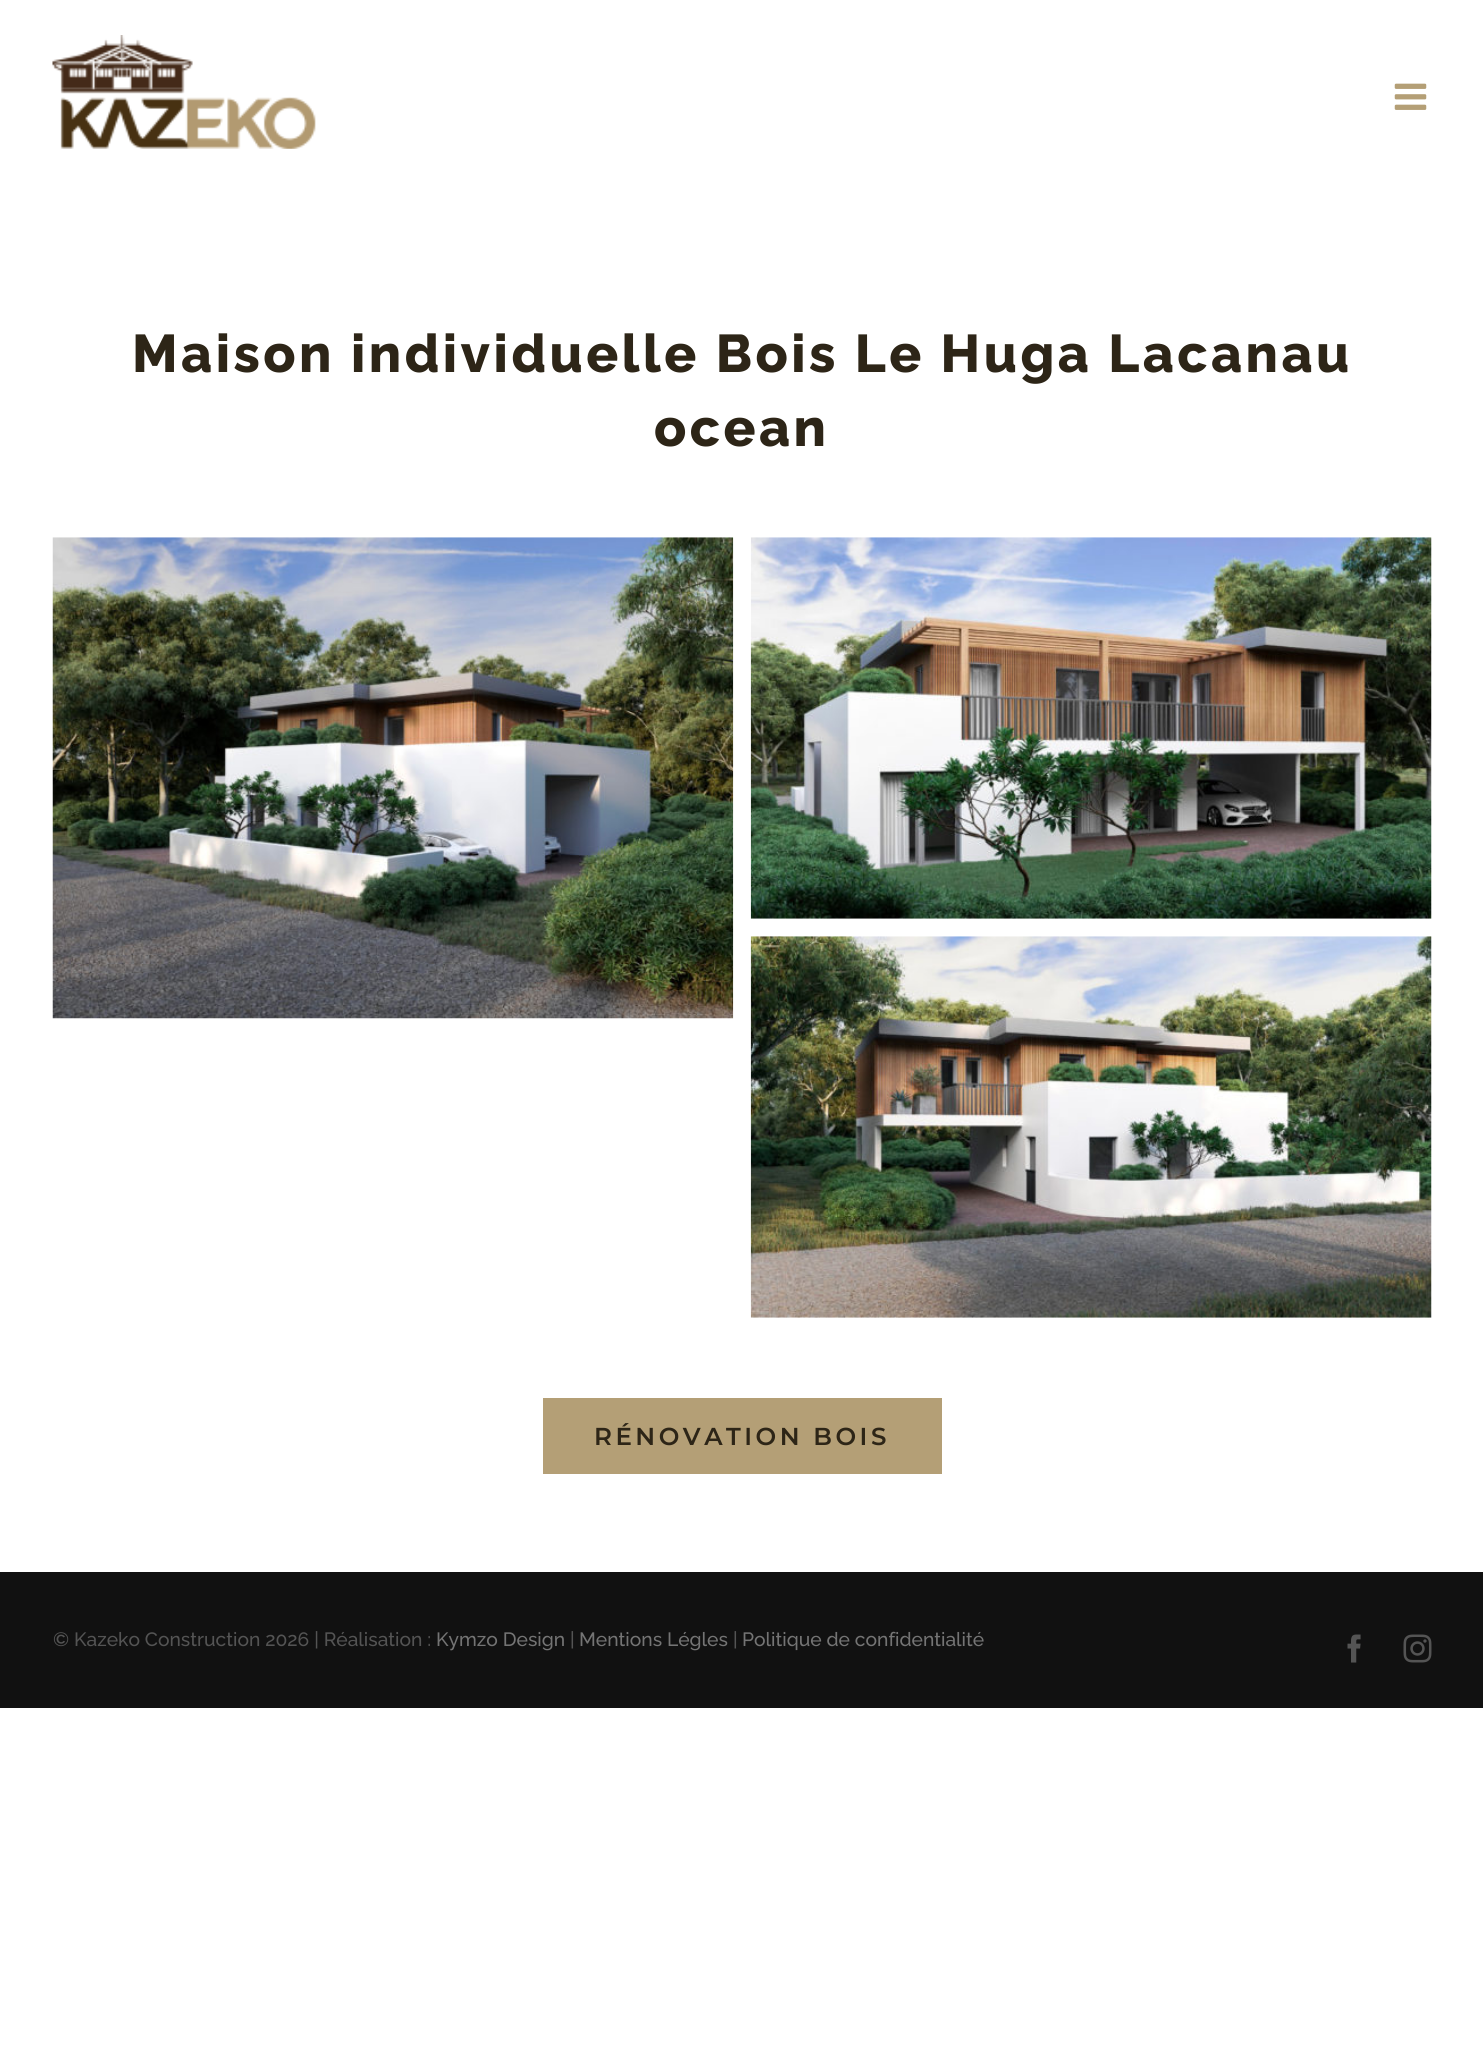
#include <cairo.h>
#include <math.h>
#include <stddef.h>

static cairo_t *c;
static void C(unsigned color){cairo_set_source_rgb(c, (color >> 16) / 255.0, (color >> 8 & 255) / 255.0, (color & 255) / 255.0);}
static void F(const char *family, double size, int italic, int bold){cairo_select_font_face(c, family, italic ? CAIRO_FONT_SLANT_ITALIC : CAIRO_FONT_SLANT_NORMAL,bold ? CAIRO_FONT_WEIGHT_BOLD : CAIRO_FONT_WEIGHT_NORMAL);cairo_set_font_size(c, size);}
static void T(double x, double y, const char *s){cairo_move_to(c, x, y);cairo_show_text(c, s);}
static void L(double x, double y, const char *s, double letter, double word){cairo_move_to(c, x, y);while (*s) {char ch[5] = {0};int n = 0;do ch[n++] = *s++; while ((*s & 0xC0) == 0x80);cairo_show_text(c, ch);cairo_rel_move_to(c, letter + word * (*ch == ' '), 0);}}
static void R(double x, double y, double w, double h){cairo_rectangle(c, x, y, w, h);cairo_fill(c);}
static void I(const char *path, double x, double y, double w, double h){cairo_surface_t *image = cairo_image_surface_create_from_png(path);cairo_save(c);cairo_set_source_surface(c, image, x, y);cairo_rectangle(c, x, y, w, h);cairo_fill(c);cairo_restore(c);cairo_surface_destroy(image);}
int main(void) {
cairo_surface_t *surface = cairo_image_surface_create(CAIRO_FORMAT_RGB24, 1483, 2057);
c = cairo_create(surface);
cairo_font_options_t *options = cairo_font_options_create();
cairo_font_options_set_hint_metrics(options, CAIRO_HINT_METRICS_OFF);
cairo_font_options_set_hint_style(options, CAIRO_HINT_STYLE_NONE);
cairo_set_font_options(c, options);
cairo_set_miter_limit(c, 4);
C(0xffffff);
cairo_paint(c);
I("1.png",52,35,264,114);
I("2.png",1394,83,33,27);
F("Raleway ExtraBold",53,0,0);
C(0x2d2517);
L(132,372,"Maison individuelle Bois Le Huga Lacanau",3.5,0);
L(654,446,"ocean",3.5,0);
I("3.png",52,537,682,482);
I("4.png",750,537,682,382);
I("5.png",750,936,682,382);
C(0xb49f76);
R(543,1398,399,76);
F("Montserrat SemiBold",24.5,0,0);
C(0x2d2517);
L(594,1445,"RÉNOVATION BOIS",3.5,0);
C(0x111111);
R(0,1572,1483,136);
F("Raleway Medium",19.25,0,0);
C(0x545454);
T(53,1646,"© Kazeko Construction 2026 | Réalisation :");
C(0x747474);
T(436,1646,"Kymzo Design");
C(0x545454);
T(570,1646,"|");
C(0x747474);
T(579,1646,"Mentions Légles");
C(0x545454);
T(733,1646,"|");
C(0x747474);
T(742,1646,"Politique de confidentialité");
I("6.png",1347,1634,14,29);
I("7.png",1403,1634,29,29);
cairo_surface_write_to_png(surface, "o.png");
cairo_font_options_destroy(options);
cairo_destroy(c);
cairo_surface_destroy(surface);
return 0;
}
